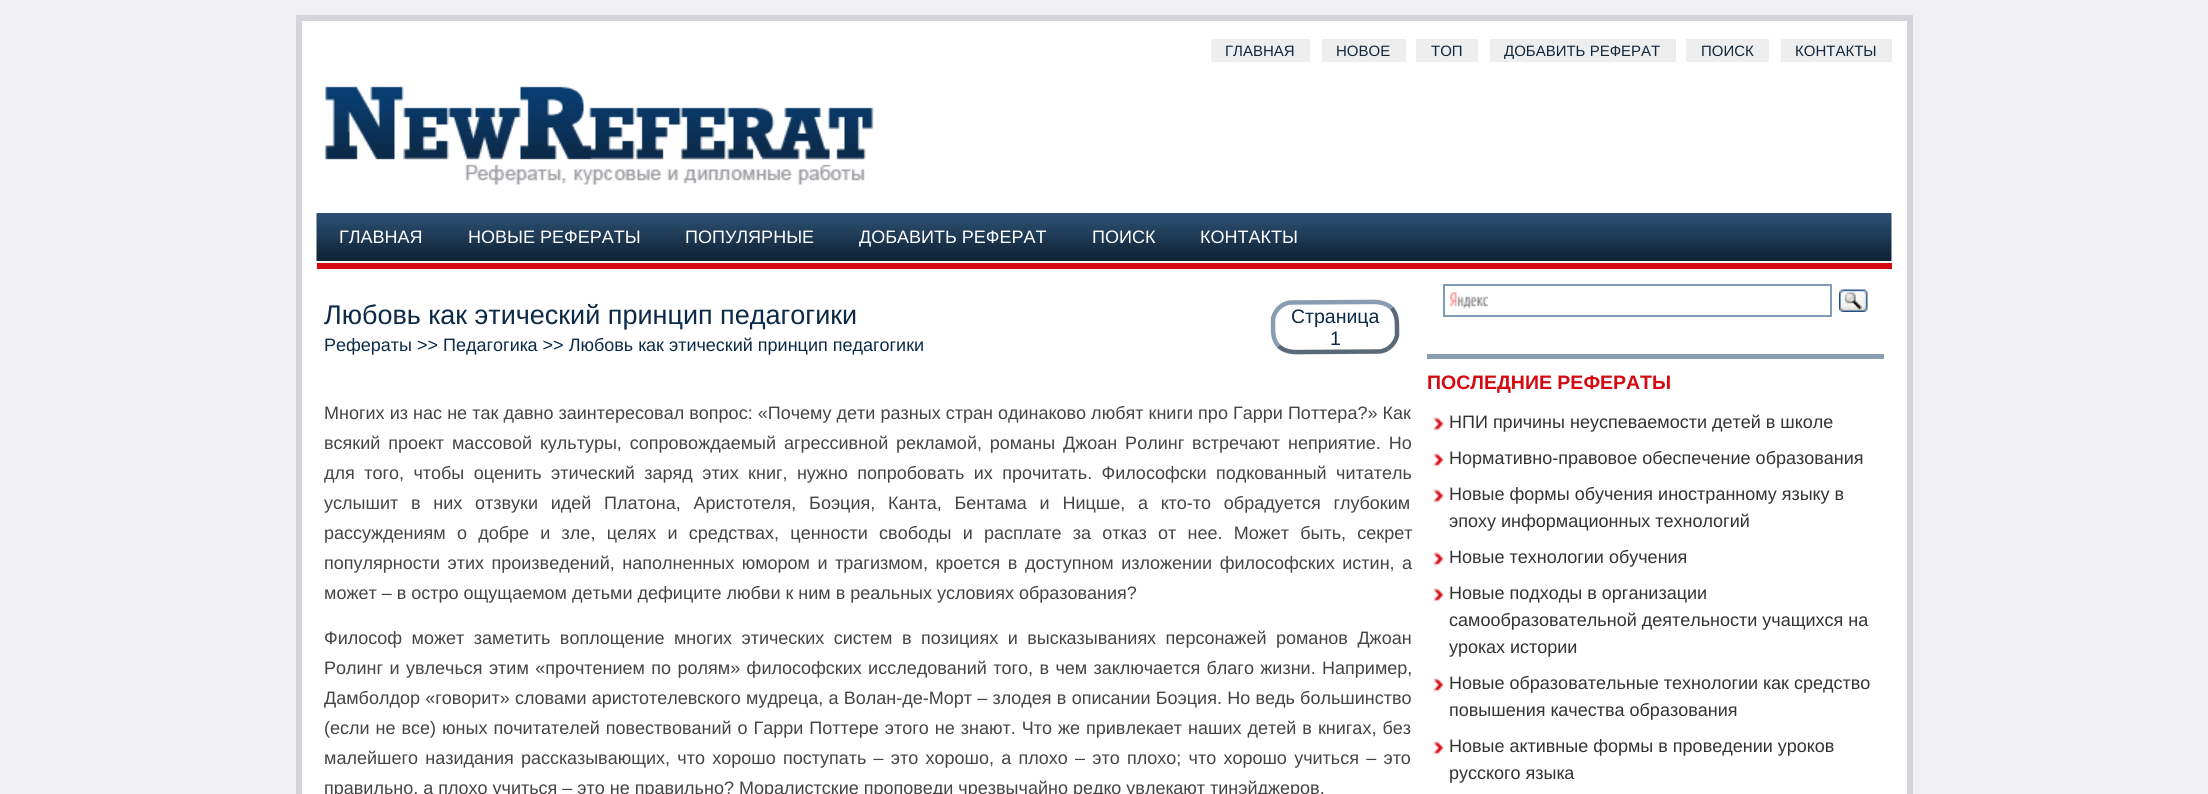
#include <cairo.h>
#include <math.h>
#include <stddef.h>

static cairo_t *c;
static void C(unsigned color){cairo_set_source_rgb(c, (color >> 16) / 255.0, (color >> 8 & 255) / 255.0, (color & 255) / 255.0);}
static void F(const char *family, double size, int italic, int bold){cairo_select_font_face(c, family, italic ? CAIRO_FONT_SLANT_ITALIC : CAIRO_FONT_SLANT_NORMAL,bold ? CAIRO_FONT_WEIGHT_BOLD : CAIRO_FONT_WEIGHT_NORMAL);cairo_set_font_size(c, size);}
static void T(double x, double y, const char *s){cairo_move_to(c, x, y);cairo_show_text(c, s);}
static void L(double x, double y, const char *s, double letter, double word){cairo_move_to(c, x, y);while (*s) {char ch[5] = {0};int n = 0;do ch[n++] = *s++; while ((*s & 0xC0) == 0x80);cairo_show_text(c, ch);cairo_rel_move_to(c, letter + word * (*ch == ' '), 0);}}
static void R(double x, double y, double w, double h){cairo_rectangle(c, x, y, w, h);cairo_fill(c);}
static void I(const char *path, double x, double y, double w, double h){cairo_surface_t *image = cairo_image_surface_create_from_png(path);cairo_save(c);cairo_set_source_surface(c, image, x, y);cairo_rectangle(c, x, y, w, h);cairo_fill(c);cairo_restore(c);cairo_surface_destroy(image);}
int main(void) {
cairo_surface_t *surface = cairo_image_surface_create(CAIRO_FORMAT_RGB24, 2208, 794);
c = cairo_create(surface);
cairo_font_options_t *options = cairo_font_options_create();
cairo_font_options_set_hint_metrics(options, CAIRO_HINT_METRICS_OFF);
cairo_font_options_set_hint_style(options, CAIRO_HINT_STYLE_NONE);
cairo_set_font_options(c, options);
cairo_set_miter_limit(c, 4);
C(0xf0f0f2);
cairo_paint(c);
C(0xffffff);
cairo_rectangle(c,299,18,1611,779);
cairo_fill_preserve(c);
C(0xd3d3db);
cairo_set_line_width(c,6);
cairo_stroke(c);
C(0xeeeeee);
R(1211,39,99,23);
F("Liberation Sans",15,0,0);
C(0x11273c);
T(1225,56,"ГЛАВНАЯ");
C(0xeeeeee);
R(1322,39,84,23);
C(0x11273c);
T(1336,56,"НОВОЕ");
C(0xeeeeee);
R(1416,39,62,23);
C(0x11273c);
T(1431,56,"ТОП");
C(0xeeeeee);
R(1490,39,186,23);
C(0x11273c);
T(1504,56,"ДОБАВИТЬ РЕФЕРАТ");
C(0xeeeeee);
R(1686,39,83,23);
C(0x11273c);
T(1701,56,"ПОИСК");
C(0xeeeeee);
R(1781,39,111,23);
C(0x11273c);
T(1795,56,"КОНТАКТЫ");
I("1.png",325,86,549,99);
I("2.png",316,213,1576,48);
F("Liberation Sans",18,0,0);
C(0xffffff);
T(339,243,"ГЛАВНАЯ");
T(468,243,"НОВЫЕ РЕФЕРАТЫ");
T(685,243,"ПОПУЛЯРНЫЕ");
T(859,243,"ДОБАВИТЬ РЕФЕРАТ");
T(1092,243,"ПОИСК");
T(1200,243,"КОНТАКТЫ");
C(0xd50911);
R(317,263,1575,6);
F("Liberation Sans",27,0,0);
C(0x0c2a48);
T(324,324,"Любовь как этический принцип педагогики");
cairo_new_path(c);
cairo_move_to(c,1391.5,308);
cairo_curve_to(c,1396.5,313.5,1397,320,1397,327);
cairo_line_to(c,1397,335.5);
cairo_curve_to(c,1395,344,1388,351,1379,351.5);
cairo_line_to(c,1307,352);
cairo_curve_to(c,1297,352,1286.5,353.5,1278.5,346);
C(0x5b6976);
cairo_set_line_width(c,4.5);
cairo_stroke(c);
cairo_new_path(c);
cairo_move_to(c,1278.5,346);
cairo_curve_to(c,1273.5,340.5,1273,334,1273,327);
cairo_line_to(c,1273,318.5);
cairo_curve_to(c,1275,310,1282,303,1291,302.5);
cairo_line_to(c,1363,302);
cairo_curve_to(c,1373,302,1383.5,300.5,1391.5,308);
C(0x899db1);
cairo_stroke(c);
F("Liberation Sans",19.5,0,0);
C(0x0c2a48);
T(1291,323,"Страница");
T(1330,345,"1");
F("Liberation Sans",18,0,0);
T(324,351,"Рефераты >> Педагогика >> Любовь как этический принцип педагогики");
C(0x444444);
L(324,419,"Многих из нас не так давно заинтересовал вопрос: «Почему дети разных стран одинаково любят книги про Гарри Поттера?» Как",0,.1);
L(324,449,"всякий проект массовой культуры, сопровождаемый агрессивной рекламой, романы Джоан Ролинг встречают неприятие. Но",0,2.9);
L(324,479,"для того, чтобы оценить этический заряд этих книг, нужно попробовать их прочитать. Философски подкованный читатель",0,4.4);
L(324,509,"услышит в них отзвуки идей Платона, Аристотеля, Боэция, Канта, Бентама и Ницше, а кто-то обрадуется глубоким",0,7.75);
L(324,539,"рассуждениям о добре и зле, целях и средствах, ценности свободы и расплате за отказ от нее. Может быть, секрет",0,6.25);
L(324,569,"популярности этих произведений, наполненных юмором и трагизмом, кроется в доступном изложении философских истин, а",0,2.5);
T(324,599,"может – в остро ощущаемом детьми дефиците любви к ним в реальных условиях образования?");
L(324,644,"Философ может заметить воплощение многих этических систем в позициях и высказываниях персонажей романов Джоан",0,4.5);
L(324,674,"Ролинг и увлечься этим «прочтением по ролям» философских исследований того, в чем заключается благо жизни. Например,",0,1.4);
L(324,704,"Дамболдор «говорит» словами аристотелевского мудреца, а Волан-де-Морт – злодея в описании Боэция. Но ведь большинство",0,.25);
L(324,734,"(если не все) юных почитателей повествований о Гарри Поттере этого не знают. Что же привлекает наших детей в книгах, без",0,1);
L(324,764,"малейшего назидания рассказывающих, что хорошо поступать – это хорошо, а плохо – это плохо; что хорошо учиться – это",0,2.25);
T(324,794,"правильно, а плохо учиться – это не правильно? Моралистские проповеди чрезвычайно редко увлекают тинэйджеров.");
I("3.png",1449,292,39,17);
cairo_rectangle(c,1444,285,387,31);
C(0x7f9db9);
cairo_set_line_width(c,2);
cairo_stroke(c);
I("4.png",1839,289,29,23);
C(0x899eb1);
R(1427,354,457,5);
F("Liberation Sans",19.5,0,1);
C(0xd50911);
T(1427,389,"ПОСЛЕДНИЕ РЕФЕРАТЫ");
I("5.png",1433,417,11,14);
F("Liberation Sans",18,0,0);
C(0x333333);
T(1449,428,"НПИ причины неуспеваемости детей в школе");
I("5.png",1433,453,11,14);
T(1449,464,"Нормативно-правовое обеспечение образования");
I("5.png",1433,489,11,14);
T(1449,500,"Новые формы обучения иностранному языку в");
T(1449,527,"эпоху информационных технологий");
I("5.png",1433,552,11,14);
T(1449,563,"Новые технологии обучения");
I("5.png",1433,588,11,14);
T(1449,599,"Новые подходы в организации");
T(1449,626,"самообразовательной деятельности учащихся на");
T(1449,653,"уроках истории");
I("5.png",1433,678,11,14);
T(1449,689,"Новые образовательные технологии как средство");
T(1449,716,"повышения качества образования");
I("5.png",1433,741,11,14);
T(1449,752,"Новые активные формы в проведении уроков");
T(1449,779,"русского языка");
cairo_surface_write_to_png(surface, "o.png");
cairo_font_options_destroy(options);
cairo_destroy(c);
cairo_surface_destroy(surface);
return 0;
}
